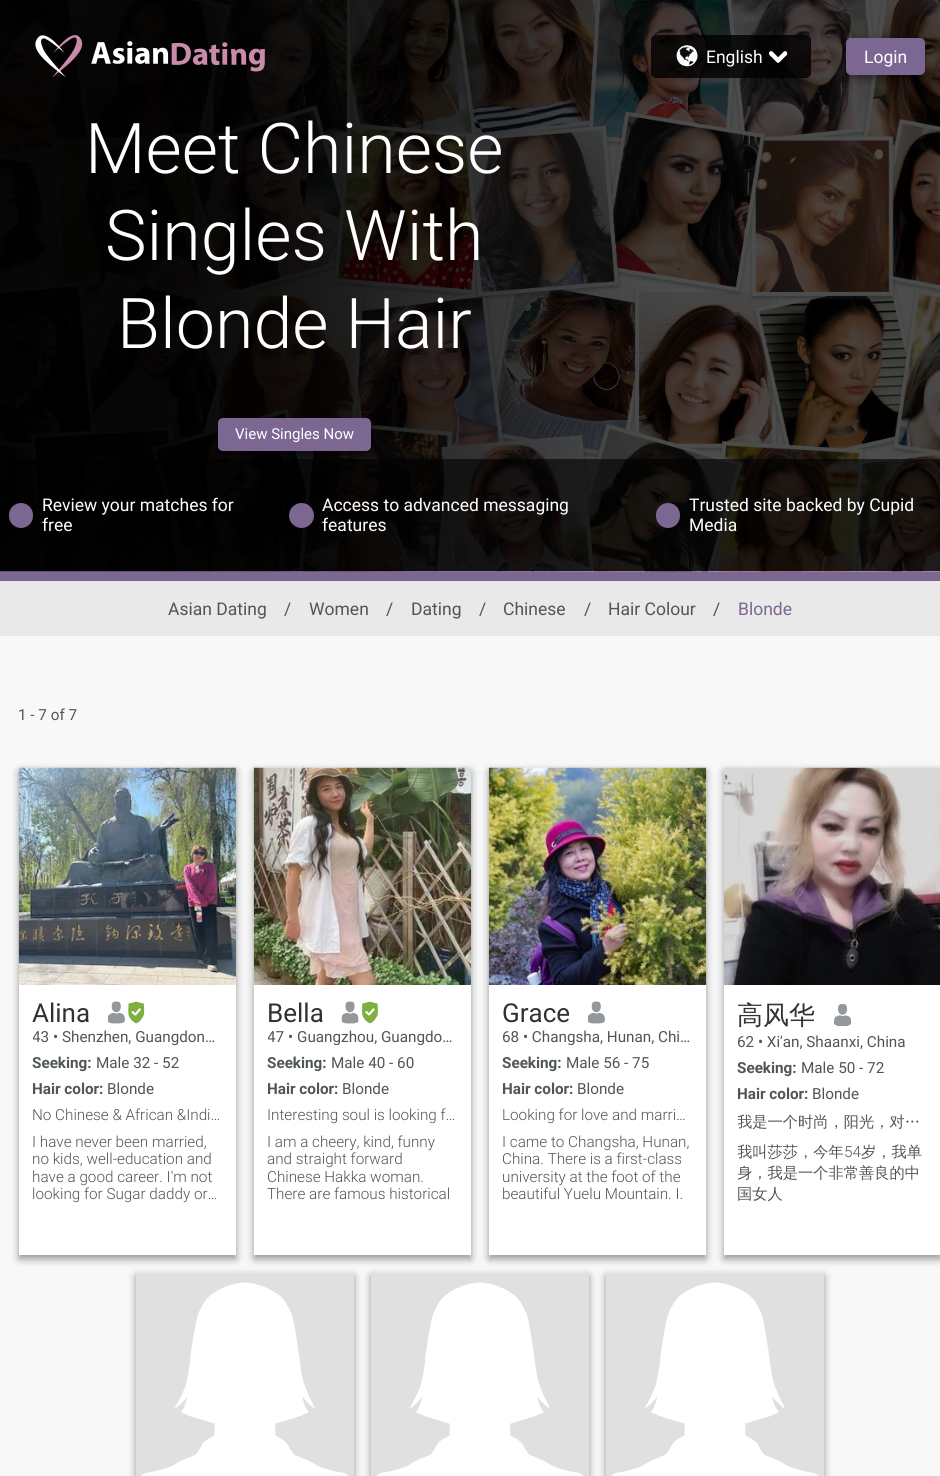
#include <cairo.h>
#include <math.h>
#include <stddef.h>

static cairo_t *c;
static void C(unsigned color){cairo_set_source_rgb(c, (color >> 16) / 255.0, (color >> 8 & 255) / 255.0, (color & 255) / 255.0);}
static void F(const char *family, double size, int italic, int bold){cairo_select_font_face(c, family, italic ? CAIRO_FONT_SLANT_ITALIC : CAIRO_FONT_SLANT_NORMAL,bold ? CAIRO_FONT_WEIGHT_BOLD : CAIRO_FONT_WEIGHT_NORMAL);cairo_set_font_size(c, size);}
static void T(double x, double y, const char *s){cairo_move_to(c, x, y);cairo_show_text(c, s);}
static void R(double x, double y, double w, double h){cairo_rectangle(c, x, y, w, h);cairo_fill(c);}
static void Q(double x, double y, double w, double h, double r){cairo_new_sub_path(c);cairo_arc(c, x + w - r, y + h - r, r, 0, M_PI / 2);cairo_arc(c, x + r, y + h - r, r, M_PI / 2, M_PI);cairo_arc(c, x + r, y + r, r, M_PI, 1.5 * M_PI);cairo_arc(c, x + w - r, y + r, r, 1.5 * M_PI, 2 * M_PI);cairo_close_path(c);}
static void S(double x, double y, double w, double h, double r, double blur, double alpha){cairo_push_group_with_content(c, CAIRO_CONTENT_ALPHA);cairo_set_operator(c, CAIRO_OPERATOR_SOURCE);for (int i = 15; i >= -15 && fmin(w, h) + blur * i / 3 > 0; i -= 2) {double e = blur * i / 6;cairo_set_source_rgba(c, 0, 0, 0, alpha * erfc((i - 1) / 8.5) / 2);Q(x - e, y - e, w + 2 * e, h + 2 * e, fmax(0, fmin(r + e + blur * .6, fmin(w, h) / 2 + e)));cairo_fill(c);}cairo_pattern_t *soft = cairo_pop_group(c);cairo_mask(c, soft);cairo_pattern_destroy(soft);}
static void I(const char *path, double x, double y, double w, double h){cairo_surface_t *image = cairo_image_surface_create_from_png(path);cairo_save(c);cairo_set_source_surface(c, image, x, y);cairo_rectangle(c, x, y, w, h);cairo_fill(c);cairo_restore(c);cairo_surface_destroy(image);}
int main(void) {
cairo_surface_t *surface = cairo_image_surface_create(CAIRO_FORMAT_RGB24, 940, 1476);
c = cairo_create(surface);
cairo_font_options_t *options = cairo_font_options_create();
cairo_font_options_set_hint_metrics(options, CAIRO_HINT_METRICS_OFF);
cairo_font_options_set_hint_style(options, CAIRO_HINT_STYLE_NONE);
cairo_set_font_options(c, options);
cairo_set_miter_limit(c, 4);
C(0xf8f8f8);
cairo_paint(c);
C(0x7c6792);
R(0,571,940,10);
I("5.png",0,0,940,572);
I("1.png",35,35,48,43);
I("2.png",91,41,174,31);
cairo_set_source_rgba(c,0,0,0,0.8);
Q(651,35,160,43,5);
cairo_fill(c);
I("3.png",676,45,22,22);
F("Roboto",17.5,0,0);
C(0xffffff);
T(706,63,"English");
I("4.png",769,51,19,12);
C(0x000000);
S(846,41,79,38,5,4,.4);
C(0x7c6792);
Q(846,38,79,37,5);
cairo_fill(c);
C(0xffffff);
T(864,63,"Login");
F("Roboto Light",70,0,0);
T(85,173,"Meet Chinese");
T(105,260,"Singles With");
T(117,348,"Blonde Hair");
cairo_set_source_rgba(c,0,0,0,0.6);
R(0,459,940,112);
C(0x000000);
S(218,421,153,34,5,4,.4);
C(0x7c6792);
Q(218,418,153,33,5);
cairo_fill(c);
F("Roboto",15,0,0);
C(0xffffff);
T(235,439,"View Singles Now");
C(0x7c6792);
Q(9,503,24,25,12);
cairo_fill(c);
F("Roboto",17.5,0,0);
C(0xffffff);
T(42,511,"Review your matches for");
T(42,531,"free");
C(0x7c6792);
cairo_new_path(c);
cairo_arc(c,301.5,515.5,12.5,0,2 * M_PI);
cairo_fill(c);
C(0xffffff);
T(322,511,"Access to advanced messaging");
T(322,531,"features");
C(0x7c6792);
Q(656,503,24,25,12);
cairo_fill(c);
C(0xffffff);
T(689,511,"Trusted site backed by Cupid");
T(689,531,"Media");
C(0xe9e9e9);
R(0,581,940,55);
C(0x505656);
T(168,615,"Asian Dating");
T(284,615,"/");
T(309,615,"Women");
T(386,615,"/");
T(411,615,"Dating");
T(479,615,"/");
T(503,615,"Chinese");
T(584,615,"/");
T(608,615,"Hair Colour");
T(713,615,"/");
C(0x7c6792);
T(738,615,"Blonde");
F("Roboto",15.25,0,0);
C(0x505656);
T(18,720,"1 - 7 of 7");
C(0x000000);
S(19,771,217,488,0,4,.4);
C(0xffffff);
R(19,985,217,270);
I("6.png",18,767,219,218);
F("Roboto",26,0,0);
C(0x323232);
T(32,1022,"Alina");
I("7.png",107,1001,18,23);
I("8.png",128,1001,17,23);
cairo_save(c);
cairo_rectangle(c,33,1028,191,17);
cairo_clip(c);
F("Roboto",15.25,0,0);
C(0x505656);
T(32,1042,"43");
cairo_restore(c);
F("Roboto",15.25,0,0);
C(0x505656);
T(53,1042,"• Shenzhen, Guangdon…");
F("Roboto",15.25,0,1);
T(32,1068,"Seeking:");
F("Roboto",15.25,0,0);
T(96,1068,"Male 32 - 52");
F("Roboto",15.25,0,1);
T(32,1094,"Hair color:");
F("Roboto",15.25,0,0);
T(107,1094,"Blonde");
F("Roboto Light",15.25,0,0);
T(32,1120,"No Chinese & African &Indi…");
T(32,1147,"I have never been married,");
T(32,1164,"no kids, well-education and");
T(32,1182,"have a good career. I'm not");
T(32,1199,"looking for Sugar daddy or…");
C(0x000000);
S(254,771,217,488,0,4,.4);
C(0xffffff);
R(254,985,217,270);
I("9.png",253,767,219,218);
F("Roboto",26,0,0);
C(0x323232);
T(267,1022,"Bella");
I("10.png",341,1001,18,23);
I("11.png",362,1001,16,23);
cairo_save(c);
cairo_rectangle(c,268,1028,191,17);
cairo_clip(c);
F("Roboto",15.25,0,0);
C(0x505656);
T(267,1042,"47");
cairo_restore(c);
F("Roboto",15.25,0,0);
C(0x505656);
T(288,1042,"•");
cairo_save(c);
cairo_rectangle(c,268,1028,191,17);
cairo_clip(c);
T(297,1042,"Guangzhou, Guangdo…");
cairo_restore(c);
F("Roboto",15.25,0,1);
T(267,1068,"Seeking:");
F("Roboto",15.25,0,0);
T(331,1068,"Male 40 - 60");
F("Roboto",15.25,0,1);
T(267,1094,"Hair color:");
F("Roboto",15.25,0,0);
T(342,1094,"Blonde");
F("Roboto Light",15.25,0,0);
T(267,1120,"Interesting soul is looking f…");
T(267,1147,"I am a cheery, kind, funny");
T(267,1164,"and straight forward");
cairo_save(c);
cairo_rectangle(c,268,1133,191,70);
cairo_clip(c);
T(267,1182,"Chinese Hakka woman.");
cairo_restore(c);
T(267,1199,"There are famous historical");
C(0x000000);
S(489,771,217,488,0,4,.4);
C(0xffffff);
R(489,985,217,270);
I("12.png",488,767,219,218);
F("Roboto",26,0,0);
C(0x323232);
T(502,1022,"Grace");
I("7.png",587,1001,18,23);
F("Roboto",15.25,0,0);
C(0x505656);
T(502,1042,"68 • Changsha, Hunan, Chi…");
F("Roboto",15.25,0,1);
T(502,1068,"Seeking:");
F("Roboto",15.25,0,0);
T(566,1068,"Male 56 - 75");
F("Roboto",15.25,0,1);
T(502,1094,"Hair color:");
F("Roboto",15.25,0,0);
T(577,1094,"Blonde");
F("Roboto Light",15.25,0,0);
T(502,1120,"Looking for love and marri…");
T(502,1147,"I came to Changsha, Hunan,");
cairo_save(c);
cairo_rectangle(c,503,1133,191,70);
cairo_clip(c);
T(502,1164,"China. There is a first-class");
cairo_restore(c);
T(502,1182,"university at the foot of the");
T(502,1199,"beautiful Yuelu Mountain. I.");
C(0x000000);
S(724,771,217,488,0,4,.4);
C(0xffffff);
R(724,985,216,270);
I("13.png",723,767,217,218);
F("WenQuanYi Zen Hei Medium",26,0,0);
C(0x323232);
T(737,1024,"高风华");
I("14.png",834,1004,17,22);
F("Roboto",15.25,0,0);
C(0x505656);
T(737,1047,"62 • Xi'an, Shaanxi, China");
F("Roboto",15.25,0,1);
T(737,1073,"Seeking:");
F("Roboto",15.25,0,0);
T(801,1073,"Male 50 - 72");
F("Roboto",15.25,0,1);
T(737,1099,"Hair color:");
F("Roboto",15.25,0,0);
T(812,1099,"Blonde");
cairo_save(c);
cairo_rectangle(c,738,1111,191,22);
cairo_clip(c);
F("WenQuanYi Zen Hei Medium",15.25,0,0);
T(737,1127,"我是一个时尚，阳光，对…");
cairo_restore(c);
cairo_save(c);
cairo_rectangle(c,738,1141,191,64);
cairo_clip(c);
F("WenQuanYi Zen Hei Medium",15.25,0,0);
T(737,1157,"我叫莎莎，今年");
cairo_restore(c);
F("Roboto Light",15.25,0,0);
T(844,1157,"54");
F("WenQuanYi Zen Hei Medium",15.25,0,0);
T(861,1157,"岁，我单");
cairo_save(c);
cairo_rectangle(c,738,1141,191,64);
cairo_clip(c);
T(737,1178,"身，我是一个非常善良的中");
cairo_restore(c);
T(737,1199,"国女人");
C(0x000000);
S(136,1276,218,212,0,4,.4);
C(0xe0e0e0);
R(136,1273,218,203);
I("15.png",141,1282,208,194);
C(0x000000);
S(371,1276,218,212,0,4,.4);
C(0xe0e0e0);
R(371,1273,218,203);
I("16.png",376,1282,208,194);
C(0x000000);
S(606,1276,218,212,0,4,.4);
C(0xe0e0e0);
R(606,1273,218,203);
I("17.png",611,1282,208,194);
cairo_surface_write_to_png(surface, "o.png");
cairo_font_options_destroy(options);
cairo_destroy(c);
cairo_surface_destroy(surface);
return 0;
}
